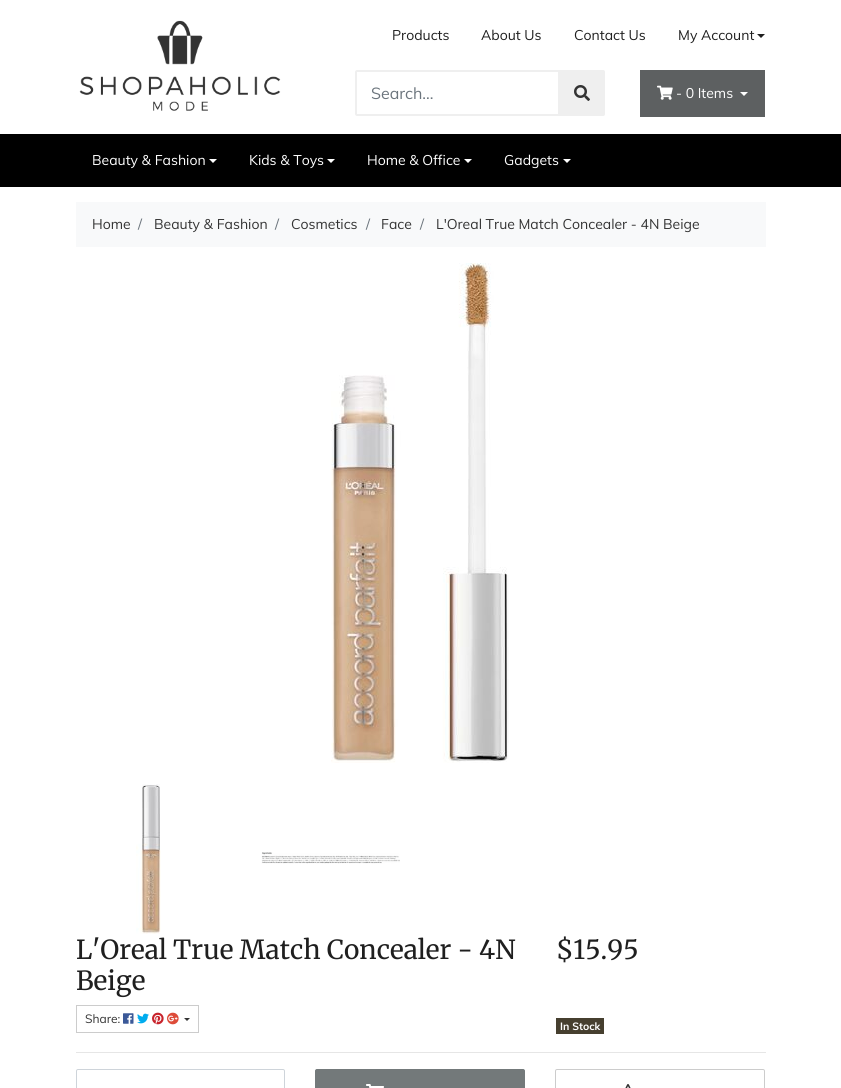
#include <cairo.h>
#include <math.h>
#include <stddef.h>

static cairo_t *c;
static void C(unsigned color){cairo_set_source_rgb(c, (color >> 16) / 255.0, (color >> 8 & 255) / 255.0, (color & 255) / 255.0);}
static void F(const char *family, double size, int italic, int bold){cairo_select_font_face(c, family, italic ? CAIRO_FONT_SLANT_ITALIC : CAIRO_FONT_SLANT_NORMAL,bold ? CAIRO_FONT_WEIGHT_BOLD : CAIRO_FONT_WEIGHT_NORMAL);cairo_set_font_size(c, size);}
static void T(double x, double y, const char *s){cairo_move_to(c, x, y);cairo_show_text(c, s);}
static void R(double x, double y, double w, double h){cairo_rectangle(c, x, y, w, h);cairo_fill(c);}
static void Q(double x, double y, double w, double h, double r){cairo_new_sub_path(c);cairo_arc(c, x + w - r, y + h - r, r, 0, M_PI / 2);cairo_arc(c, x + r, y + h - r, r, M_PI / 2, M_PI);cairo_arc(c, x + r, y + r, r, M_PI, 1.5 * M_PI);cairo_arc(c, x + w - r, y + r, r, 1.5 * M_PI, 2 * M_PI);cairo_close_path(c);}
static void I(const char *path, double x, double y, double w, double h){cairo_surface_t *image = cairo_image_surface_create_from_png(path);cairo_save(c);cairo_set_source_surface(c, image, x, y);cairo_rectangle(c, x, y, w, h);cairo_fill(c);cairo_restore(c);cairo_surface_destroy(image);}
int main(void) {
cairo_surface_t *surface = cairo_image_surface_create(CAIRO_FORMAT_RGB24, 841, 1088);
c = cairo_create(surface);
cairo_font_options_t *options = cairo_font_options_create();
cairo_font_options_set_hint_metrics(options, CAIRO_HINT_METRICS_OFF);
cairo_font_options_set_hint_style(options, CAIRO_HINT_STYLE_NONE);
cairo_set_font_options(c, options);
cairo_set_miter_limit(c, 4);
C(0xffffff);
cairo_paint(c);
I("1.png",79,20,202,91);
F("Muli",14,0,0);
C(0x1f1f1f);
T(392,40,"Products");
T(481,40,"About Us");
T(574,40,"Contact Us");
T(678,40,"My Account");
cairo_new_path(c);
cairo_move_to(c,757,34);
cairo_line_to(c,765,34);
cairo_line_to(c,761,38);
cairo_close_path(c);
cairo_fill(c);
cairo_new_path(c);
cairo_move_to(c,357,71);
cairo_line_to(c,559,71);
cairo_line_to(c,559,115);
cairo_line_to(c,357,115);
cairo_curve_to(c,356.5,115,356,114.5,356,114);
cairo_line_to(c,356,72);
cairo_curve_to(c,356,71.5,356.5,71,357,71);
cairo_close_path(c);
C(0xefefef);
cairo_stroke(c);
F("Muli",16,0,0);
C(0x6c757d);
T(371,99,"Search...");
C(0xefefef);
cairo_new_path(c);
cairo_move_to(c,559.5,70.5);
cairo_line_to(c,603,70.5);
cairo_curve_to(c,604,70.5,604.5,71,604.5,72);
cairo_line_to(c,604.5,114);
cairo_curve_to(c,604.5,115,604,115.5,603,115.5);
cairo_line_to(c,559.5,115.5);
cairo_close_path(c);
cairo_fill_preserve(c);
cairo_set_line_width(c,1);
cairo_stroke(c);
I("2.png",574,85,16,16);
C(0x5d6061);
R(640,70,125,47);
I("3.png",657,85,16,15);
F("Muli",14,0,0);
C(0xffffff);
T(676,98,"- 0 Items");
cairo_new_path(c);
cairo_move_to(c,740,92);
cairo_line_to(c,748,92);
cairo_line_to(c,744,96);
cairo_close_path(c);
cairo_fill(c);
C(0x000000);
R(0,134,841,53);
C(0xffffff);
T(92,165,"Beauty & Fashion");
cairo_new_path(c);
cairo_move_to(c,209,159);
cairo_line_to(c,217,159);
cairo_line_to(c,213,163);
cairo_close_path(c);
cairo_fill(c);
T(249,165,"Kids & Toys");
cairo_new_path(c);
cairo_move_to(c,327,159);
cairo_line_to(c,335,159);
cairo_line_to(c,331,163);
cairo_close_path(c);
cairo_fill(c);
T(367,165,"Home & Office");
cairo_new_path(c);
cairo_move_to(c,464,159);
cairo_line_to(c,472,159);
cairo_line_to(c,468,163);
cairo_close_path(c);
cairo_fill(c);
T(504,165,"Gadgets");
cairo_new_path(c);
cairo_move_to(c,563,159);
cairo_line_to(c,571,159);
cairo_line_to(c,567,163);
cairo_close_path(c);
cairo_fill(c);
C(0xf8f9fa);
R(76,202,690,45);
C(0x333333);
T(92,229,"Home");
C(0x6c757d);
T(138,229,"/");
C(0x333333);
T(154,229,"Beauty & Fashion");
C(0x6c757d);
T(275,229,"/");
C(0x333333);
T(291,229,"Cosmetics");
C(0x6c757d);
T(366,229,"/");
C(0x333333);
T(381,229,"Face");
C(0x6c757d);
T(420,229,"/");
C(0x333333);
T(436,229,"L'Oreal True Match Concealer - 4N Beige");
I("4.png",331,263,178,500);
I("5.png",136,784,25,150);
I("6.png",261,852,139,12);
F("Merriweather",26.25,0,0);
C(0x1f1f1f);
T(76,959,"L'Oreal True Match Concealer - 4N");
T(76,990,"Beige");
cairo_rectangle(c,76.5,1005.5,122,27);
C(0xcccccc);
cairo_stroke(c);
F("Muli",12,0,0);
C(0x333333);
T(85,1023,"Share:");
I("7.png",123,1013,11,11);
I("8.png",137,1013,12,11);
I("9.png",152,1012,12,13);
I("10.png",167,1012,12,13);
cairo_new_path(c);
cairo_move_to(c,184,1018);
cairo_line_to(c,190,1018);
cairo_line_to(c,187,1021);
cairo_close_path(c);
cairo_fill(c);
F("Merriweather",26.25,0,0);
C(0x1f1f1f);
T(556,959,"$15.95");
C(0x463f2f);
R(556,1018,48,16);
F("Muli",10.5,0,1);
C(0xffffff);
T(560,1030,"In Stock");
C(0xe6e6e6);
R(76,1052,690,1);
Q(76.5,1069.5,208,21,1.5);
C(0xced4da);
cairo_stroke(c);
C(0x73797a);
Q(315.5,1069.5,209,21,1.5);
cairo_fill_preserve(c);
cairo_stroke(c);
I("11.png",366,1084,18,4);
Q(555.5,1069.5,209,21,1.5);
C(0xcccccc);
cairo_stroke(c);
I("12.png",625,1084,6,4);
cairo_surface_write_to_png(surface, "o.png");
cairo_font_options_destroy(options);
cairo_destroy(c);
cairo_surface_destroy(surface);
return 0;
}
